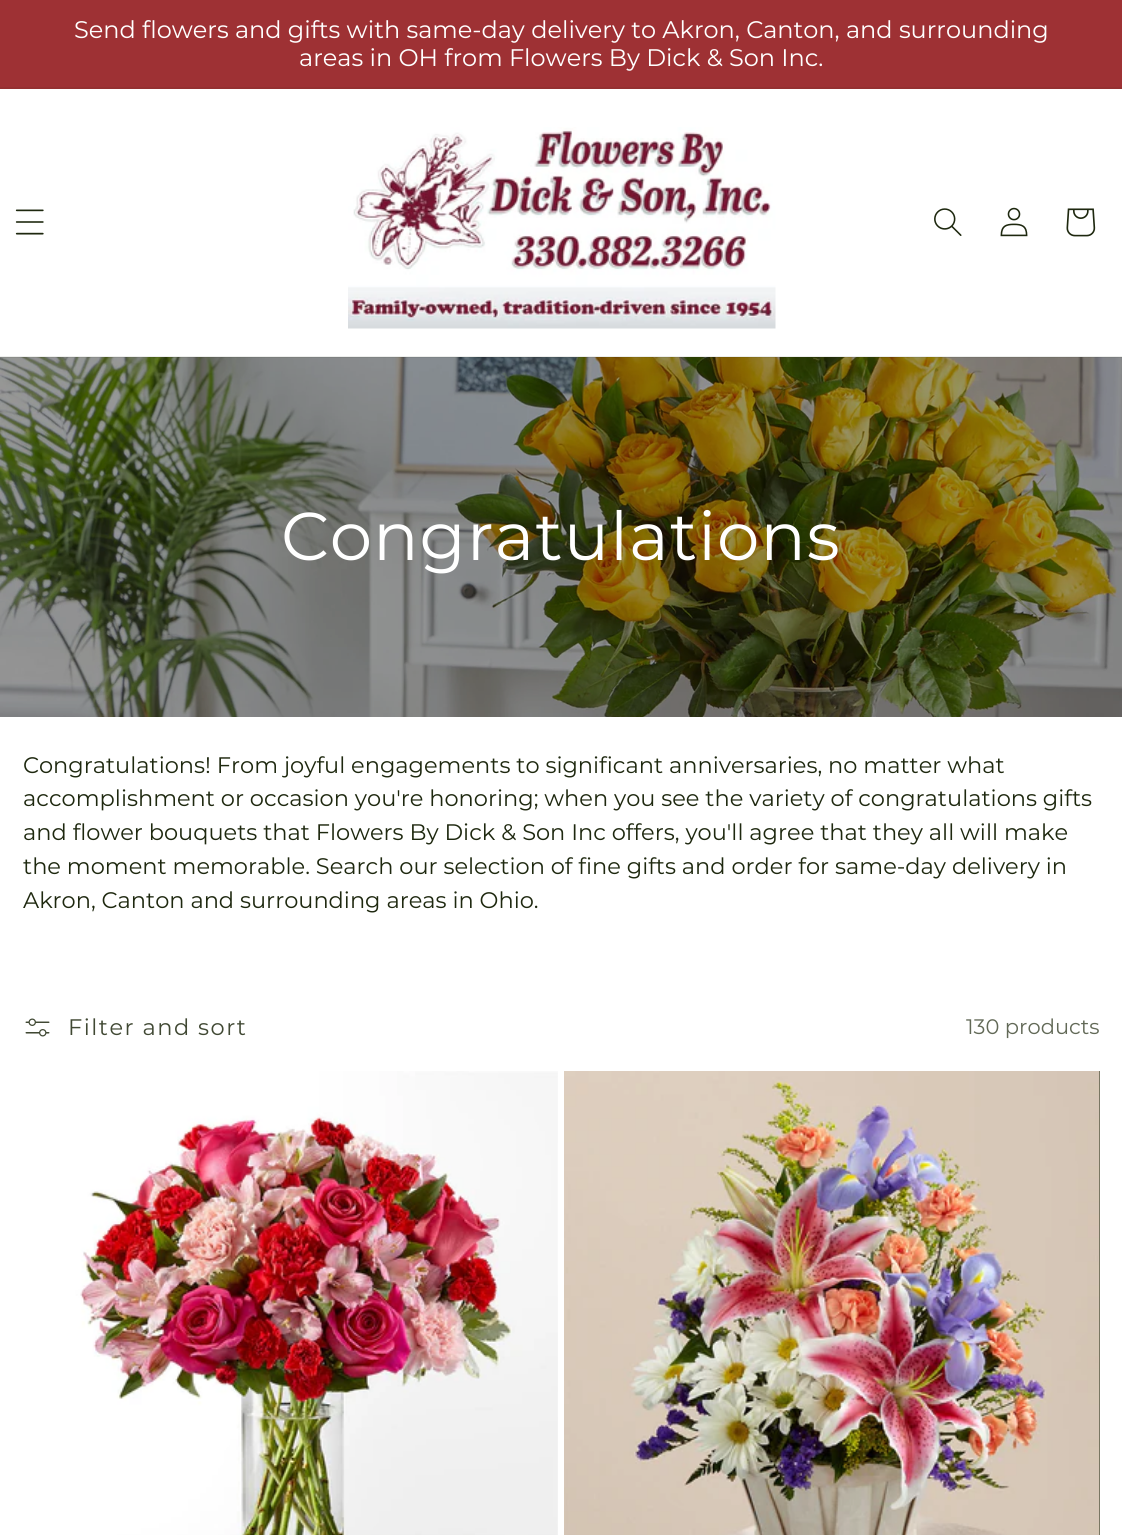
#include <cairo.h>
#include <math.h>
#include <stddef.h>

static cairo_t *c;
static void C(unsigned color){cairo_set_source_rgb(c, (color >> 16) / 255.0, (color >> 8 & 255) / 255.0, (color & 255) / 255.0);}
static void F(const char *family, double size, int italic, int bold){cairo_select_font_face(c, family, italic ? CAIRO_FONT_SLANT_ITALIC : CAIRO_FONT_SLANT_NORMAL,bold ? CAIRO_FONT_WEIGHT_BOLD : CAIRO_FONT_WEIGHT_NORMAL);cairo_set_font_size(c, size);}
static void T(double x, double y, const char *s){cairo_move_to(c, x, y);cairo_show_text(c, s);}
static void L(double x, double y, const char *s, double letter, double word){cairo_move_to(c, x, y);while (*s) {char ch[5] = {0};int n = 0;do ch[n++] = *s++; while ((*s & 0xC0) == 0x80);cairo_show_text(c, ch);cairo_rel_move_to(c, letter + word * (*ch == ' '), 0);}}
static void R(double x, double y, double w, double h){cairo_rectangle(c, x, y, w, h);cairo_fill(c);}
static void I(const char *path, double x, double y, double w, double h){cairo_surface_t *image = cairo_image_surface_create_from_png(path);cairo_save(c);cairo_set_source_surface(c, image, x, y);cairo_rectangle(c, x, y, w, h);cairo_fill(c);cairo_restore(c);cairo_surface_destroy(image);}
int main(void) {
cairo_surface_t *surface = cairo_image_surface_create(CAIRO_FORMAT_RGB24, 1122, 1535);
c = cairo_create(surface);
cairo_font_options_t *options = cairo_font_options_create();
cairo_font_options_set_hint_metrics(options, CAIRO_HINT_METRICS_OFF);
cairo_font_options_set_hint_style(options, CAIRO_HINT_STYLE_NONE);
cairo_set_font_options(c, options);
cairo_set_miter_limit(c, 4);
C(0xffffff);
cairo_paint(c);
C(0x9e3134);
R(0,0,1122,87);
C(0x943031);
R(0,87,1122,2);
F("Montserrat",24,0,0);
C(0xffffff);
T(74,38,"Send flowers and gifts with same-day delivery to Akron, Canton, and surrounding");
T(299,66,"areas in OH from Flowers By Dick & Son Inc.");
I("6.png",0,357,1122,360);
cairo_set_source_rgba(c,0.118,0.157,0.059,0.08);
R(0,356,1122,2);
I("1.png",15,209,29,26);
I("2.png",348,127,428,202);
I("3.png",934,208,28,28);
I("4.png",1000,207,28,30);
I("5.png",1066,208,30,29);
F("Montserrat",67.5,0,0);
C(0xffffff);
L(281,560,"Congratulations",.9,0);
F("Montserrat",22.5,0,0);
C(0x1e280f);
T(23,773,"Congratulations! From joyful engagements to significant anniversaries, no matter what");
T(23,806,"accomplishment or occasion you're honoring; when you see the variety of congratulations gifts");
T(23,840,"and flower bouquets that Flowers By Dick & Son Inc offers, you'll agree that they all will make");
T(23,874,"the moment memorable. Search our selection of fine gifts and order for same-day delivery in");
T(23,908,"Akron, Canton and surrounding areas in Ohio.");
I("7.png",25,1018,25,19);
C(0x404833);
L(68,1035,"Filter and sort",1.5,0);
F("Montserrat",21,0,0);
C(0x626957);
T(966,1034,"130 products");
I("8.png",23,1071,535,464);
C(0x1e280f);
R(1099,1071,1,464);
I("9.png",564,1071,536,464);
cairo_surface_write_to_png(surface, "o.png");
cairo_font_options_destroy(options);
cairo_destroy(c);
cairo_surface_destroy(surface);
return 0;
}
